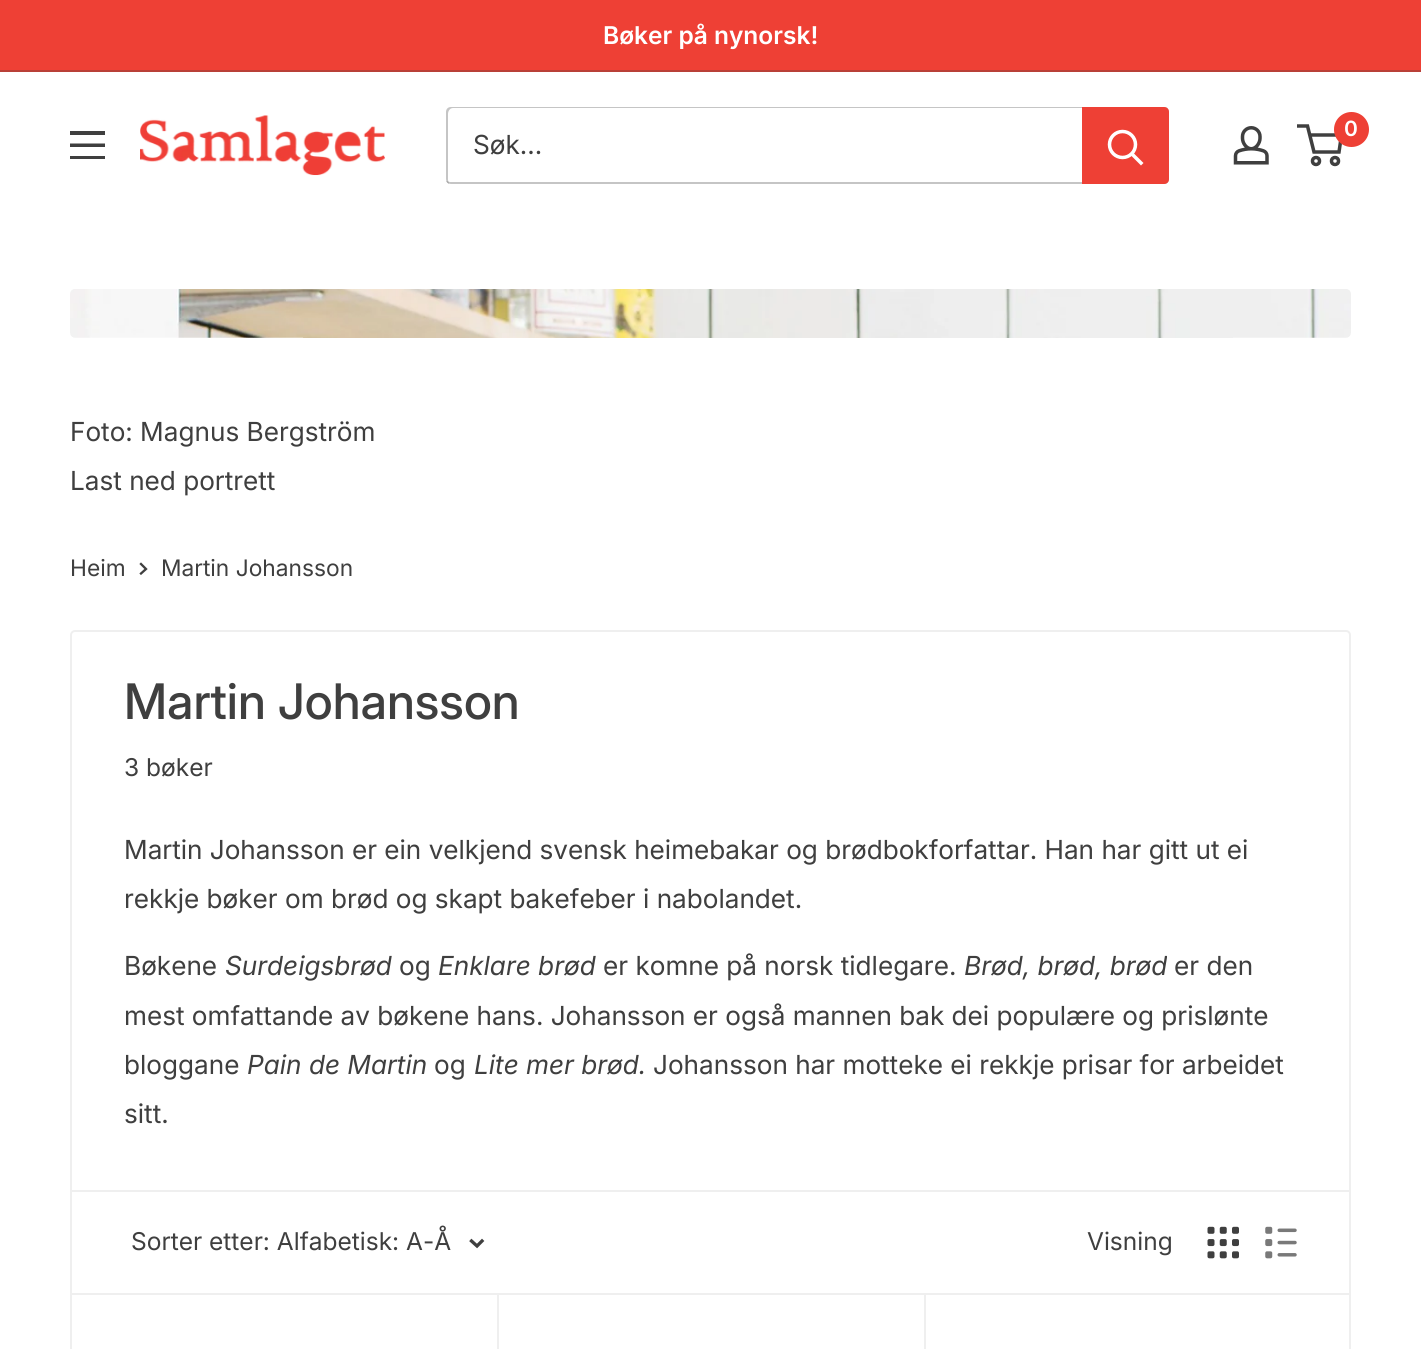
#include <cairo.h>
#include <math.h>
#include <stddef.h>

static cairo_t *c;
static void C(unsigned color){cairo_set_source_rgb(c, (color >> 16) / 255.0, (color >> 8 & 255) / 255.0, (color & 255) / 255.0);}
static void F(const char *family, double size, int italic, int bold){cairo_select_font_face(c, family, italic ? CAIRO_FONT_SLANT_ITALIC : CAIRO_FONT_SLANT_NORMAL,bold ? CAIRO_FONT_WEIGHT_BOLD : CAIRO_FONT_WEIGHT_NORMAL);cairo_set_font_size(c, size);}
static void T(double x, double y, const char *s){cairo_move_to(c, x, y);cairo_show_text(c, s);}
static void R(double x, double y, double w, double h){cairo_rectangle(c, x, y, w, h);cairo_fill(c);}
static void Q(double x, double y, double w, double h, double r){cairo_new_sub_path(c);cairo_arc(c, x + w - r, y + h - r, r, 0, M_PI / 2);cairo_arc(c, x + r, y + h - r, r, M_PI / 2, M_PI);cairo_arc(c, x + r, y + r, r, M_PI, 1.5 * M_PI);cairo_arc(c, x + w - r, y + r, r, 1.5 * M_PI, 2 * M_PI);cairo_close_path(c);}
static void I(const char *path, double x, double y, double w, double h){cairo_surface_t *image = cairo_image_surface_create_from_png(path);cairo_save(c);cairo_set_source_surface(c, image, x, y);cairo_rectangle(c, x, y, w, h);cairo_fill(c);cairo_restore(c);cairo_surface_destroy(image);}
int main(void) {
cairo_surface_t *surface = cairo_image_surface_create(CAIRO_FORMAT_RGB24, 1421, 1349);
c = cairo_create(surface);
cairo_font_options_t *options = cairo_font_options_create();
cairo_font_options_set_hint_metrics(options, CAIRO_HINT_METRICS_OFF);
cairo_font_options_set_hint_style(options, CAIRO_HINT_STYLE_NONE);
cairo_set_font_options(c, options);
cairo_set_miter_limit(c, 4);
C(0xffffff);
cairo_paint(c);
C(0xee4035);
R(0,0,1421,70);
C(0xb94038);
R(0,70,1421,2);
F("Inter SemiBold",24.5,0,0);
C(0xffffff);
T(603,44,"Bøker på nynorsk!");
I("1.png",140,115,245,61);
I("2.png",1233,126,36,39);
cairo_arc(c,1316,161,3.5,0,2 * M_PI);
C(0x3f3f3f);
cairo_set_line_width(c,3.5);
cairo_stroke(c);
cairo_arc(c,1335,161,3.5,0,2 * M_PI);
cairo_stroke(c);
cairo_new_path(c);
cairo_move_to(c,1309.5,135);
cairo_line_to(c,1341.5,135);
cairo_line_to(c,1339,152);
cairo_line_to(c,1314,152);
cairo_line_to(c,1307.5,126);
cairo_line_to(c,1297,126);
cairo_stroke(c);
C(0xee4035);
cairo_arc(c,1351.5,129.5,17.5,0,2 * M_PI);
cairo_fill(c);
F("Inter SemiBold",21,0,0);
C(0xffffff);
T(1344,136,"0");
C(0x3f3f3f);
cairo_set_fill_rule(c,CAIRO_FILL_RULE_EVEN_ODD);
cairo_new_path(c);
cairo_move_to(c,70,156);
cairo_line_to(c,105,156);
cairo_line_to(c,105,159);
cairo_line_to(c,70,159);
cairo_close_path(c);
cairo_move_to(c,70,131);
cairo_line_to(c,105,131);
cairo_line_to(c,105,135);
cairo_line_to(c,70,135);
cairo_close_path(c);
cairo_move_to(c,70,143.5);
cairo_line_to(c,105,143.5);
cairo_line_to(c,105,147);
cairo_line_to(c,70,147);
cairo_close_path(c);
cairo_fill(c);
C(0xc5c5c5);
cairo_set_fill_rule(c,CAIRO_FILL_RULE_WINDING);
cairo_new_path(c);
cairo_move_to(c,446,181);
cairo_curve_to(c,447,183,449,184,451,184);
cairo_line_to(c,1164,184);
cairo_curve_to(c,1167,184,1169,182,1169,179);
cairo_line_to(c,1169,112);
cairo_curve_to(c,1169,110,1168,109,1167,108);
cairo_line_to(c,1167,110);
cairo_line_to(c,1167,177);
cairo_curve_to(c,1167,180,1165,182,1162,182);
cairo_line_to(c,450,182);
cairo_close_path(c);
cairo_fill(c);
cairo_set_source_rgba(c,0.247,0.247,0.247,0.3);
cairo_new_path(c);
cairo_move_to(c,453,108);
cairo_line_to(c,1166,108);
cairo_line_to(c,1168,108);
cairo_curve_to(c,1167,108,1165,107,1164,107);
cairo_line_to(c,451,107);
cairo_curve_to(c,448,107,446,109,446,112);
cairo_line_to(c,446,179);
cairo_curve_to(c,446,181,447,183,449,184);
cairo_line_to(c,448,180);
cairo_line_to(c,448,114);
cairo_curve_to(c,448,111,450,108,453,108);
cairo_close_path(c);
cairo_fill(c);
F("Inter",26.25,0,0);
C(0x3f3f3f);
T(473,154,"Søk...");
C(0xee4035);
cairo_new_path(c);
cairo_move_to(c,1082,107);
cairo_line_to(c,1164,107);
cairo_curve_to(c,1167,107,1169,109,1169,112);
cairo_line_to(c,1169,179);
cairo_curve_to(c,1169,182,1167,184,1164,184);
cairo_line_to(c,1082,184);
cairo_close_path(c);
cairo_fill(c);
cairo_new_path(c);
cairo_move_to(c,1141,163);
cairo_line_to(c,1132,154);
C(0xffffff);
cairo_set_line_cap(c,CAIRO_LINE_CAP_SQUARE);
cairo_stroke(c);
cairo_arc(c,1122.5,144.5,13,0,2 * M_PI);
cairo_set_line_cap(c,CAIRO_LINE_CAP_BUTT);
cairo_stroke(c);
I("3.png",70,289,1281,49);
C(0x3f3f3f);
T(70,441,"Foto: Magnus Bergström");
T(70,490,"Last ned portrett");
F("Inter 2",22.75,0,0);
T(70,576,"Heim");
cairo_new_path(c);
cairo_move_to(c,141,564);
cairo_line_to(c,146,569);
cairo_line_to(c,141,573.5);
cairo_set_line_width(c,2.3);
cairo_set_line_cap(c,CAIRO_LINE_CAP_SQUARE);
cairo_stroke(c);
T(161,576,"Martin Johansson");
Q(71,631,1279,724,4);
C(0xefefef);
cairo_set_line_width(c,2);
cairo_set_line_cap(c,CAIRO_LINE_CAP_BUTT);
cairo_stroke(c);
F("Inter Medium",49,0,0);
C(0x3f3f3f);
T(124,719,"Martin Johansson");
F("Inter 2",24.5,0,0);
T(124,776,"3 bøker");
F("Inter",26.25,0,0);
T(124,859,"Martin Johansson er ein velkjend svensk heimebakar og brødbokforfattar. Han har gitt ut ei");
T(124,908,"rekkje bøker om brød og skapt bakefeber i nabolandet.");
T(124,975,"Bøkene");
F("Inter",26.25,1,0);
T(225,975,"Surdeigsbrød");
F("Inter",26.25,0,0);
T(399,975,"og");
F("Inter",26.25,1,0);
T(438,975,"Enklare brød");
F("Inter",26.25,0,0);
T(603,975,"er komne på norsk tidlegare.");
F("Inter",26.25,1,0);
T(964,975,"Brød, brød, brød");
F("Inter",26.25,0,0);
T(1174,975,"er den");
T(124,1025,"mest omfattande av bøkene hans. Johansson er også mannen bak dei populære og prislønte");
T(124,1074,"bloggane");
F("Inter",26.25,1,0);
T(247,1074,"Pain de Martin");
F("Inter",26.25,0,0);
T(434,1074,"og");
F("Inter",26.25,1,0);
T(474,1074,"Lite mer brød.");
F("Inter",26.25,0,0);
T(653,1074,"Johansson har motteke ei rekkje prisar for arbeidet");
T(124,1123,"sitt.");
C(0xefefef);
R(72,1190,1277,2);
cairo_new_path(c);
cairo_move_to(c,77,1293);
cairo_line_to(c,499,1293);
cairo_line_to(c,499,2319);
cairo_line_to(c,75,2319);
cairo_line_to(c,497,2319);
cairo_line_to(c,497,1293);
cairo_line_to(c,75,1293);
cairo_close_path(c);
cairo_fill(c);
cairo_new_path(c);
cairo_move_to(c,499,1293);
cairo_line_to(c,926,1293);
cairo_line_to(c,926,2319);
cairo_line_to(c,499,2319);
cairo_line_to(c,924,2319);
cairo_line_to(c,924,1293);
cairo_close_path(c);
cairo_fill(c);
R(72,1293,1277,2);
F("Inter 2",24.5,0,0);
C(0x3f3f3f);
T(131,1250,"Sorter etter: Alfabetisk: A-Å");
cairo_new_path(c);
cairo_move_to(c,482,1241);
cairo_line_to(c,477,1246);
cairo_line_to(c,471.5,1241);
cairo_set_line_width(c,3.3);
cairo_set_line_cap(c,CAIRO_LINE_CAP_SQUARE);
cairo_stroke(c);
T(1087,1250,"Visning");
I("4.png",1207,1226,32,33);
I("5.png",1265,1226,32,33);
cairo_surface_write_to_png(surface, "o.png");
cairo_font_options_destroy(options);
cairo_destroy(c);
cairo_surface_destroy(surface);
return 0;
}
